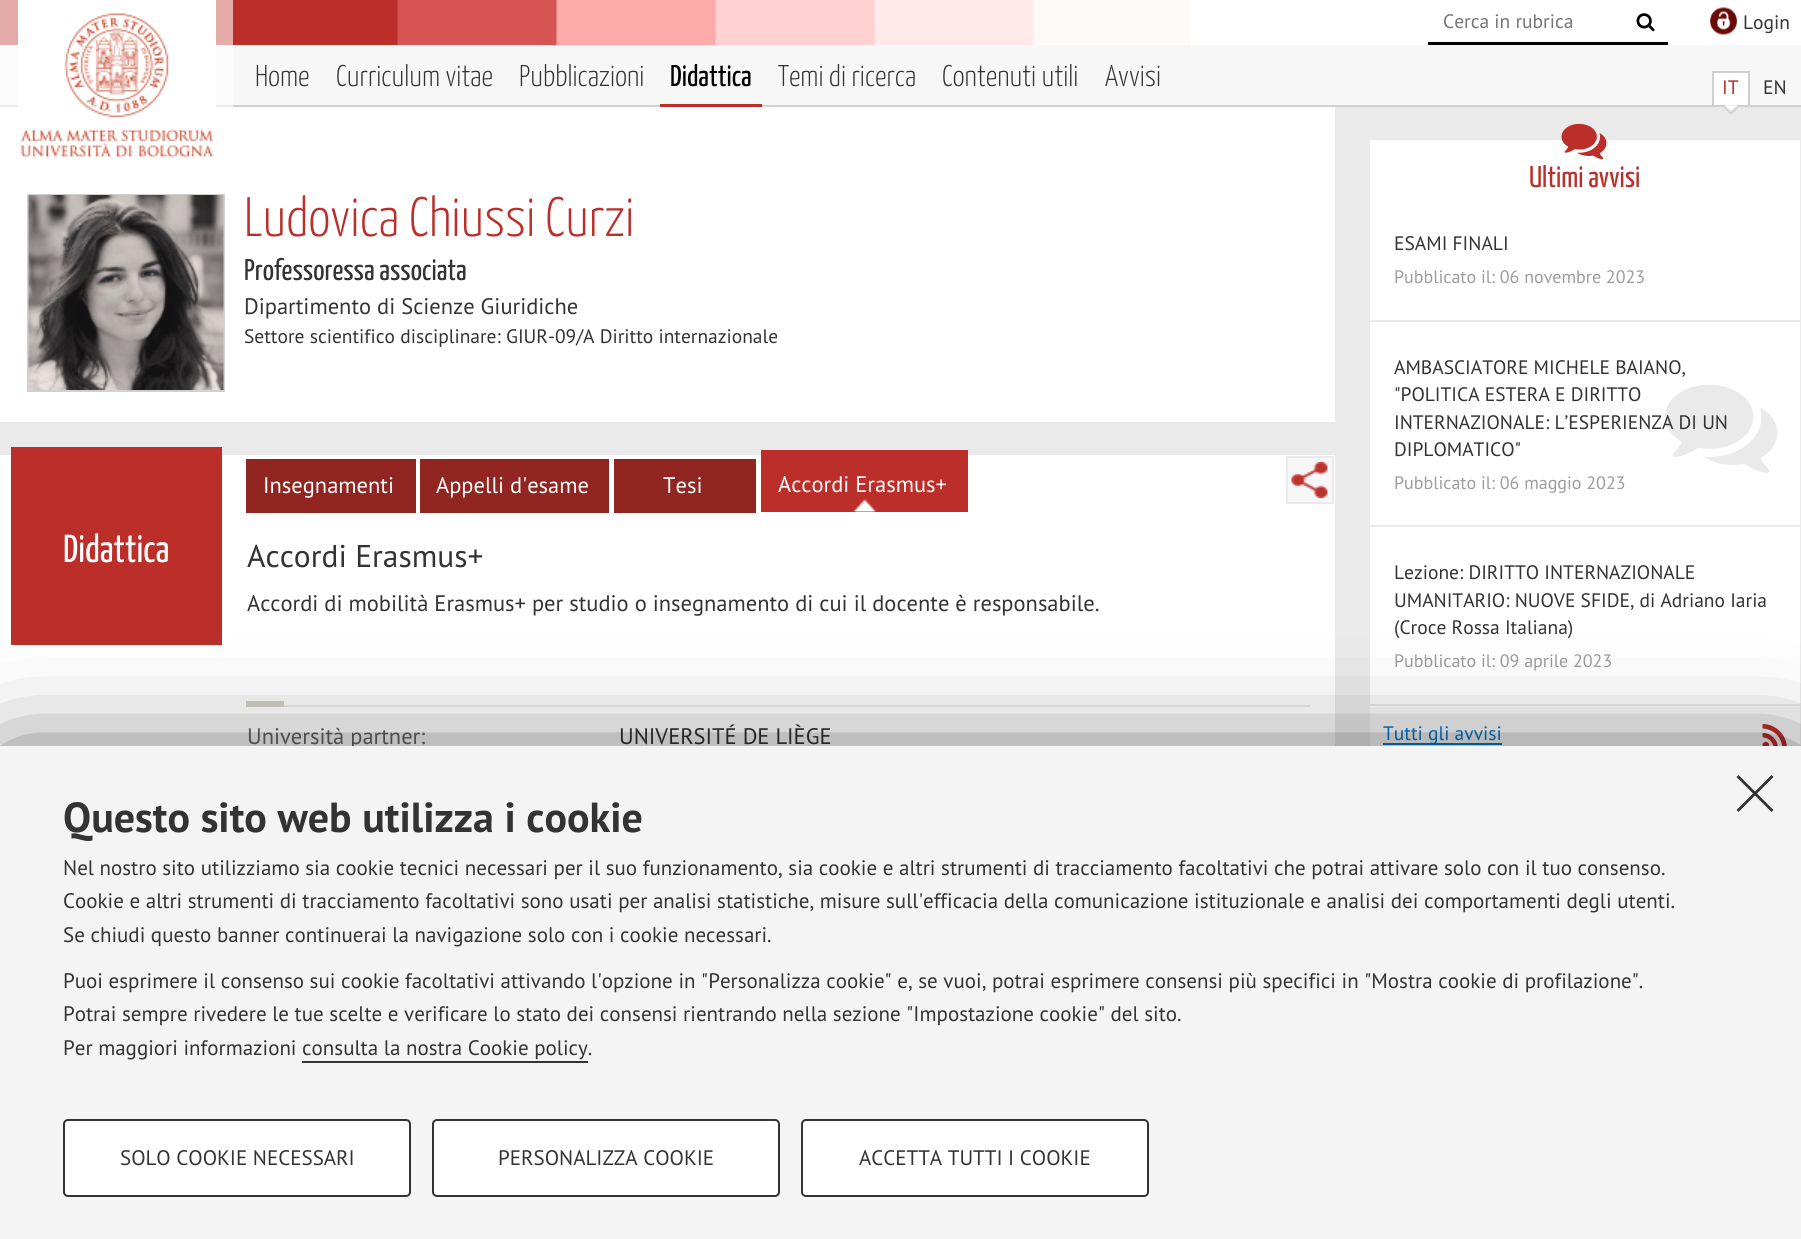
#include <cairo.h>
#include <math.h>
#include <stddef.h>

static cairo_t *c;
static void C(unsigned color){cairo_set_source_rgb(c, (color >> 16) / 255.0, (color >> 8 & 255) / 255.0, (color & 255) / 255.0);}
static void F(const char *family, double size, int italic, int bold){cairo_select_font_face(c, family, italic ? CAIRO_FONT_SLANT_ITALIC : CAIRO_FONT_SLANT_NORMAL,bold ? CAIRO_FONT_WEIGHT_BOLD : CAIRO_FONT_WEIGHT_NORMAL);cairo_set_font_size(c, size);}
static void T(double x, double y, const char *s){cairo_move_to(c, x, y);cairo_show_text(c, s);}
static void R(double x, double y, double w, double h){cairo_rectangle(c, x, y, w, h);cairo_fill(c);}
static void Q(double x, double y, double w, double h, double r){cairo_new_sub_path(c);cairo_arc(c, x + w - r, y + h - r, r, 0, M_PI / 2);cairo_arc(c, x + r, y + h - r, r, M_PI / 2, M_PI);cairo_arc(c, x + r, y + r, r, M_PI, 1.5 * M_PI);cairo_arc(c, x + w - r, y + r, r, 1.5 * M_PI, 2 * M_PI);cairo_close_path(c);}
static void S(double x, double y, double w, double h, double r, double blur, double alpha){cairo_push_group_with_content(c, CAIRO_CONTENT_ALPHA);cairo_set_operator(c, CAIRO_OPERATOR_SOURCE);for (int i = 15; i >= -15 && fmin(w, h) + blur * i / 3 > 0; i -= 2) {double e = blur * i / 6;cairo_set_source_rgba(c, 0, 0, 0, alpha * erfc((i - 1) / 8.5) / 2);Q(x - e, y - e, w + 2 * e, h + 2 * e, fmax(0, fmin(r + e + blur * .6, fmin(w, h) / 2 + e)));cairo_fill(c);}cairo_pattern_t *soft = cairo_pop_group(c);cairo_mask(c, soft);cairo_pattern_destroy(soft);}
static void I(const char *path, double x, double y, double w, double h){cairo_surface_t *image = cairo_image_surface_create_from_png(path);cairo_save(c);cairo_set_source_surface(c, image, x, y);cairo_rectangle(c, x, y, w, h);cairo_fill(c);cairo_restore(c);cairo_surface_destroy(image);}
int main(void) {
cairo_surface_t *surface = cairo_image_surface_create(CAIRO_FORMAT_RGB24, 1801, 1239);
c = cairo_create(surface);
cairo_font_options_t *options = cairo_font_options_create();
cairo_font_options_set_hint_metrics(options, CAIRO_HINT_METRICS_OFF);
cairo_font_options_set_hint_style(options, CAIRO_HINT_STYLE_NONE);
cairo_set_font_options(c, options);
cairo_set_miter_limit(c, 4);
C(0xeaeaea);
cairo_paint(c);
C(0xbb2e29);
R(233,0,164,45);
C(0xe4aba9);
R(0,0,233,45);
C(0xffffff);
R(1191,0,610,45);
I("1.png",397,0,794,45);
C(0xfcfcfc);
R(0,45,233,60);
C(0xffffff);
R(0,107,1335,315);
I("2.png",18,0,198,158);
C(0x000000);
R(1428,42,240,3);
F("PT Sans",19.5,0,0);
C(0x757575);
T(1443,28,"Cerca in rubrica");
I("3.png",1636,13,19,19);
I("4.png",1710,7,27,28);
C(0x333333);
T(1743,29,"Login");
C(0xf7f7f7);
R(233,45,1568,60);
C(0xd0d0d0);
R(233,105,1568,2);
F("Yanone Kaffeesatz Light",30,0,0);
C(0x333333);
T(255,86,"Home");
T(336,86,"Curriculum vitae");
T(519,86,"Pubblicazioni");
C(0xbb2e29);
R(660,104,102,3);
F("Yanone Kaffeesatz",30,0,0);
C(0x000000);
T(670,86,"Didattica");
F("Yanone Kaffeesatz Light",30,0,0);
C(0x333333);
T(778,86,"Temi di ricerca");
T(942,86,"Contenuti utili");
T(1105,86,"Avvisi");
C(0xffffff);
R(1714,73,34,32);
C(0xd0d0d0);
R(1712,71,37,2);
R(1748,71,2,34);
R(1712,71,2,34);
F("PT Sans",19.5,0,0);
C(0xbb2e29);
T(1722,94,"IT");
I("5.png",1723,104,16,11);
C(0x333333);
T(1763,94,"EN");
cairo_rectangle(c,28,195,196,196);
C(0xd0d0d0);
cairo_stroke(c);
I("6.png",28,195,196,195);
F("Yanone Kaffeesatz Light",55.5,0,0);
C(0xbb2e29);
T(244,236,"Ludovica Chiussi Curzi");
F("Yanone Kaffeesatz",30,0,0);
C(0x333333);
T(244,280,"Professoressa associata");
F("PT Sans",22.5,0,0);
T(244,314,"Dipartimento di Scienze Giuridiche");
F("PT Sans",19.5,0,0);
T(244,343,"Settore scientifico disciplinare: GIUR-09/A Diritto internazionale");
C(0xffffff);
R(0,455,1335,291);
C(0xbb2e29);
R(11,447,211,198);
F("Yanone Kaffeesatz",39,0,0);
C(0xffffff);
T(63,562,"Didattica");
C(0x902521);
R(246,459,170,54);
F("PT Sans",22.5,0,0);
C(0xffffff);
T(263,493,"Insegnamenti");
C(0x902521);
R(420,459,189,54);
C(0xffffff);
T(436,493,"Appelli d'esame");
C(0x902521);
R(614,459,142,54);
C(0xffffff);
T(663,493,"Tesi");
C(0xbb2e29);
R(761,450,207,62);
I("7.png",853,499,23,13);
C(0xffffff);
T(778,492,"Accordi Erasmus+");
F("PT Sans",31.5,0,0);
C(0x333333);
T(247,567,"Accordi Erasmus+");
F("PT Sans",22.5,0,0);
T(247,611,"Accordi di mobilità Erasmus+ per studio o insegnamento di cui il docente è responsabile.");
C(0xeaeaea);
R(284,705,1026,2);
C(0xd3d0c9);
R(246,701,38,6);
C(0x666666);
T(247,744,"Università partner:");
C(0x333333);
T(619,744,"UNIVERSITÉ DE LIÈGE");
C(0xf7f7f7);
R(1288,458,44,44);
I("8.png",1291,462,37,36);
cairo_rectangle(c,1287,457,46,46);
C(0xeaeaea);
cairo_stroke(c);
C(0xffffff);
R(1370,140,430,564);
I("9.png",1561,123,46,37);
F("Yanone Kaffeesatz",30,0,0);
C(0xbb2e29);
T(1529,187,"Ultimi avvisi");
C(0xeaeaea);
R(1370,320,430,2);
F("PT Sans",19.5,0,0);
C(0x333333);
T(1394,250,"ESAMI FINALI");
F("PT Sans",18,0,0);
C(0x9e9d9d);
T(1394,283,"Pubblicato il: 06 novembre 2023");
C(0xeaeaea);
R(1370,525,430,2);
F("PT Sans",19.5,0,0);
C(0x333333);
T(1394,374,"AMBASCIATORE MICHELE BAIANO,");
T(1394,401,"\"POLITICA ESTERA E DIRITTO");
I("10.png",1665,384,113,89);
T(1394,429,"INTERNAZIONALE: L’ESPERIENZA DI UN");
T(1394,456,"DIPLOMATICO\"");
F("PT Sans",18,0,0);
C(0x9e9d9d);
T(1394,489,"Pubblicato il: 06 maggio 2023");
F("PT Sans",19.5,0,0);
C(0x333333);
T(1394,579,"Lezione: DIRITTO INTERNAZIONALE");
T(1394,607,"UMANITARIO: NUOVE SFIDE, di Adriano Iaria");
T(1394,634,"(Croce Rossa Italiana)");
F("PT Sans",18,0,0);
C(0x9e9d9d);
T(1394,667,"Pubblicato il: 09 aprile 2023");
C(0xf7f7f7);
R(1370,707,430,39);
C(0xffffff);
R(1370,706,430,1);
C(0x0077cc);
R(1383,743,119,2);
F("PT Sans",19.5,0,0);
T(1383,740,"Tutti gli avvisi");
I("11.png",1762,724,25,22);
C(0x000000);
S(11,779,1780,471,0,56,1);
C(0xf4f4f4);
R(0,746,1801,493);
C(0x333333);
cairo_new_path(c);
cairo_move_to(c,1771.5,775);
cairo_line_to(c,1773.5,777);
cairo_line_to(c,1738.5,812);
cairo_line_to(c,1736.5,810);
cairo_close_path(c);
cairo_fill(c);
cairo_new_path(c);
cairo_move_to(c,1736.5,777);
cairo_line_to(c,1738.5,775);
cairo_line_to(c,1773.5,810);
cairo_line_to(c,1771.5,812);
cairo_close_path(c);
cairo_fill(c);
F("PT Sans",42,0,1);
T(63,832,"Questo sito web utilizza i cookie");
F("PT Sans",21,0,0);
T(63,875,"Nel nostro sito utilizziamo sia cookie tecnici necessari per il suo funzionamento, sia cookie e altri strumenti di tracciamento facoltativi che potrai attivare solo con il tuo consenso.");
T(63,908,"Cookie e altri strumenti di tracciamento facoltativi sono usati per analisi statistiche, misure sull'efficacia della comunicazione istituzionale e analisi dei comportamenti degli utenti.");
T(63,942,"Se chiudi questo banner continuerai la navigazione solo con i cookie necessari.");
T(63,988,"Puoi esprimere il consenso sui cookie facoltativi attivando l'opzione in \"Personalizza cookie\" e, se vuoi, potrai esprimere consensi più specifici in \"Mostra cookie di profilazione\".");
T(63,1021,"Potrai sempre rivedere le tue scelte e verificare lo stato dei consensi rientrando nella sezione \"Impostazione cookie\" del sito.");
T(63,1055,"Per maggiori informazioni consulta la nostra Cookie policy.");
R(302,1061,286,2);
C(0xffffff);
Q(64,1120,346,76,4);
cairo_fill_preserve(c);
C(0x333333);
cairo_stroke(c);
T(120,1165,"SOLO COOKIE NECESSARI");
C(0xffffff);
Q(433,1120,346,76,4);
cairo_fill_preserve(c);
C(0x333333);
cairo_stroke(c);
T(498,1165,"PERSONALIZZA COOKIE");
C(0xffffff);
Q(802,1120,346,76,4);
cairo_fill_preserve(c);
C(0x333333);
cairo_stroke(c);
T(859,1165,"ACCETTA TUTTI I COOKIE");
cairo_surface_write_to_png(surface, "o.png");
cairo_font_options_destroy(options);
cairo_destroy(c);
cairo_surface_destroy(surface);
return 0;
}
